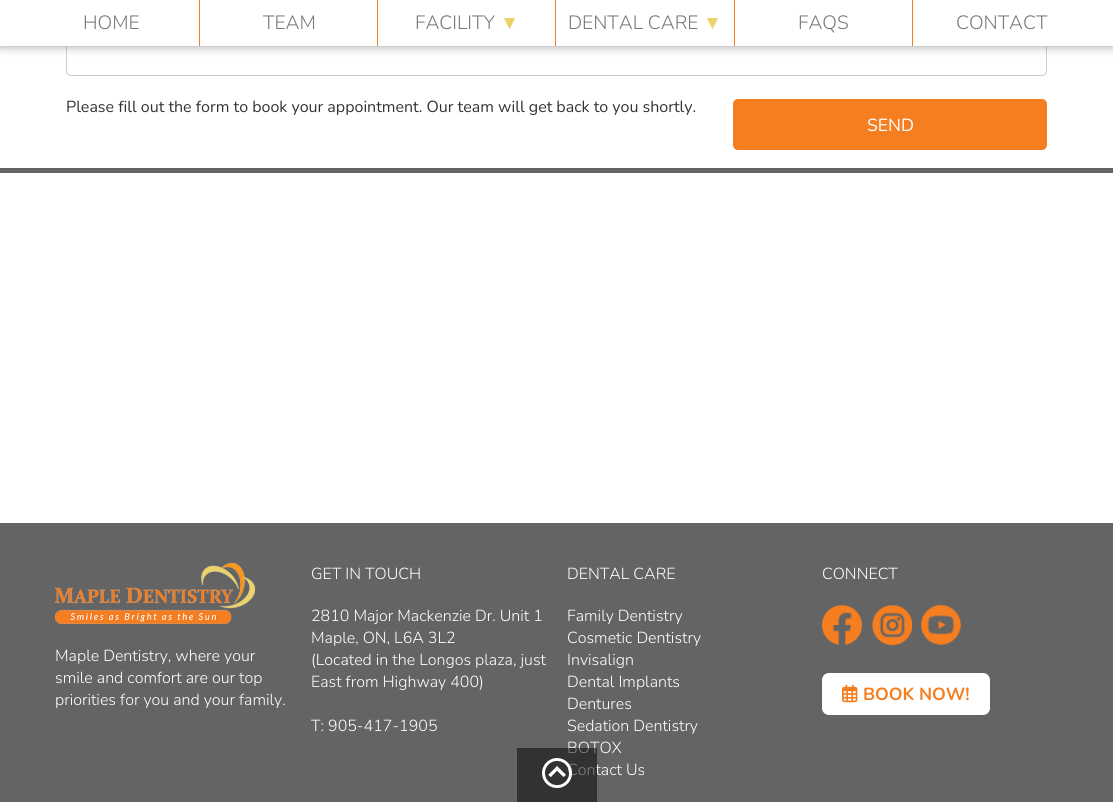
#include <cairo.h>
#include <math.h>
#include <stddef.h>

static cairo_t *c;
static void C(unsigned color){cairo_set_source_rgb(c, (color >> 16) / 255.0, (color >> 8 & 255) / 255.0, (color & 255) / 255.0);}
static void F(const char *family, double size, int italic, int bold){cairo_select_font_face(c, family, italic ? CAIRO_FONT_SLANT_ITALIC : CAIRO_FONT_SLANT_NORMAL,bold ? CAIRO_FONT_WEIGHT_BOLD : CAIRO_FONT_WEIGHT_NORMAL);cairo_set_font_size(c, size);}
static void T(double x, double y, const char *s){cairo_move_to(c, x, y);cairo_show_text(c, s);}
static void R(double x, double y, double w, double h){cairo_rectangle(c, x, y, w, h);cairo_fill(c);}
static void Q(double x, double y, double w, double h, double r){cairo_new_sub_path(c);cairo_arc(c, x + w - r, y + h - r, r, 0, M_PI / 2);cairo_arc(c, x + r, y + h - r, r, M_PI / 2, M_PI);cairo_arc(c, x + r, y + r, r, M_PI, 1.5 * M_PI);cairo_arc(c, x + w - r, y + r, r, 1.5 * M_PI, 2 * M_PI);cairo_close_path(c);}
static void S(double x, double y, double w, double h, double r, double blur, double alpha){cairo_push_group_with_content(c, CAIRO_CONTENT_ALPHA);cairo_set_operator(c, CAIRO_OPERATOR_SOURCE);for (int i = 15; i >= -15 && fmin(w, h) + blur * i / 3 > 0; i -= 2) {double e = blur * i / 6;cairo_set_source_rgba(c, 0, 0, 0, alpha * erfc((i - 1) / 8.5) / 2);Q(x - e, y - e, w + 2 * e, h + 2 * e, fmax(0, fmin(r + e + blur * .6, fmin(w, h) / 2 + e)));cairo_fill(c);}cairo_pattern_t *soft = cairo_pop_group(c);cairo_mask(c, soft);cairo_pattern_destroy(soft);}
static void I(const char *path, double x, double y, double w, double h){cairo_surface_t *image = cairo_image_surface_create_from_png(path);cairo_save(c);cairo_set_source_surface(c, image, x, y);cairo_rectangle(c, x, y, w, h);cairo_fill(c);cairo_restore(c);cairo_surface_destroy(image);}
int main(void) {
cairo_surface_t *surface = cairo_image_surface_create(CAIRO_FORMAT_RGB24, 1113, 802);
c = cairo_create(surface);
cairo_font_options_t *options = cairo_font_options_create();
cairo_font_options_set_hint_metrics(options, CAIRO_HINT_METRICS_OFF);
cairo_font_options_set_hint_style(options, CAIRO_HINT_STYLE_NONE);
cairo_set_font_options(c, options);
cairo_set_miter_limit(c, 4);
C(0xffffff);
cairo_paint(c);
Q(66.5,-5.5,980,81,4.5);
C(0xcccccc);
cairo_set_line_width(c,1);
cairo_stroke(c);
C(0x999999);
S(0,0,1113,46,0,5,1);
C(0xffffff);
R(0,0,1113,46);
C(0xf57e20);
R(199,0,1,46);
F("Nunito Light",19.25,0,0);
C(0x77787b);
T(83,29,"HOME");
C(0xf57e20);
R(377,0,1,46);
C(0x77787b);
T(263,29,"TEAM");
C(0xf57e20);
R(555,0,1,46);
C(0x77787b);
T(415,29,"FACILITY");
F("Liberation Sans",19.25,0,0);
C(0xebd269);
T(500,29,"▼");
C(0xf57e20);
R(734,0,1,46);
F("Nunito Light",19.25,0,0);
C(0x77787b);
T(568,29,"DENTAL CARE");
F("Liberation Sans",19.25,0,0);
C(0xebd269);
T(703,29,"▼");
C(0xf57e20);
R(912,0,1,46);
F("Nunito Light",19.25,0,0);
C(0x77787b);
T(798,29,"FAQS");
T(956,29,"CONTACT");
F("Nunito",16,0,0);
C(0x333333);
T(66,112,"Please fill out the form to book your appointment. Our team will get back to you shortly.");
C(0xf57e20);
Q(733,99,314,51,5);
cairo_fill(c);
F("Nunito",17.5,0,0);
C(0xffffff);
T(867,131,"SEND");
C(0x646465);
R(0,168,1113,5);
R(0,523,1113,279);
I("1.png",55,563,200,61);
F("Nunito Light",16,0,0);
C(0xffffff);
T(55,661,"Maple Dentistry, where your");
T(55,683,"smile and comfort are our top");
T(55,705,"priorities for you and your family.");
T(311,579,"GET IN TOUCH");
T(311,621,"2810 Major Mackenzie Dr. Unit 1");
T(311,643,"Maple, ON, L6A 3L2");
T(311,665,"(Located in the Longos plaza, just");
T(311,687,"East from Highway 400)");
T(311,731,"T: 905-417-1905");
T(567,579,"DENTAL CARE");
T(567,621,"Family Dentistry");
T(567,643,"Cosmetic Dentistry");
T(567,665,"Invisalign");
T(567,687,"Dental Implants");
T(567,709,"Dentures");
T(567,731,"Sedation Dentistry");
T(567,753,"BOTOX");
T(567,775,"Contact Us");
T(822,579,"CONNECT");
I("2.png",822,605,40,40);
I("3.png",872,605,40,40);
I("4.png",921,605,40,40);
Q(822,673,168,42,7);
cairo_fill(c);
I("5.png",842,684,16,19);
F("Nunito",17.5,0,1);
C(0xf57e20);
T(863,700,"BOOK NOW!");
cairo_set_source_rgba(c,0,0,0,0.5);
R(517,748,80,54);
I("6.png",542,758,30,30);
cairo_surface_write_to_png(surface, "o.png");
cairo_font_options_destroy(options);
cairo_destroy(c);
cairo_surface_destroy(surface);
return 0;
}
